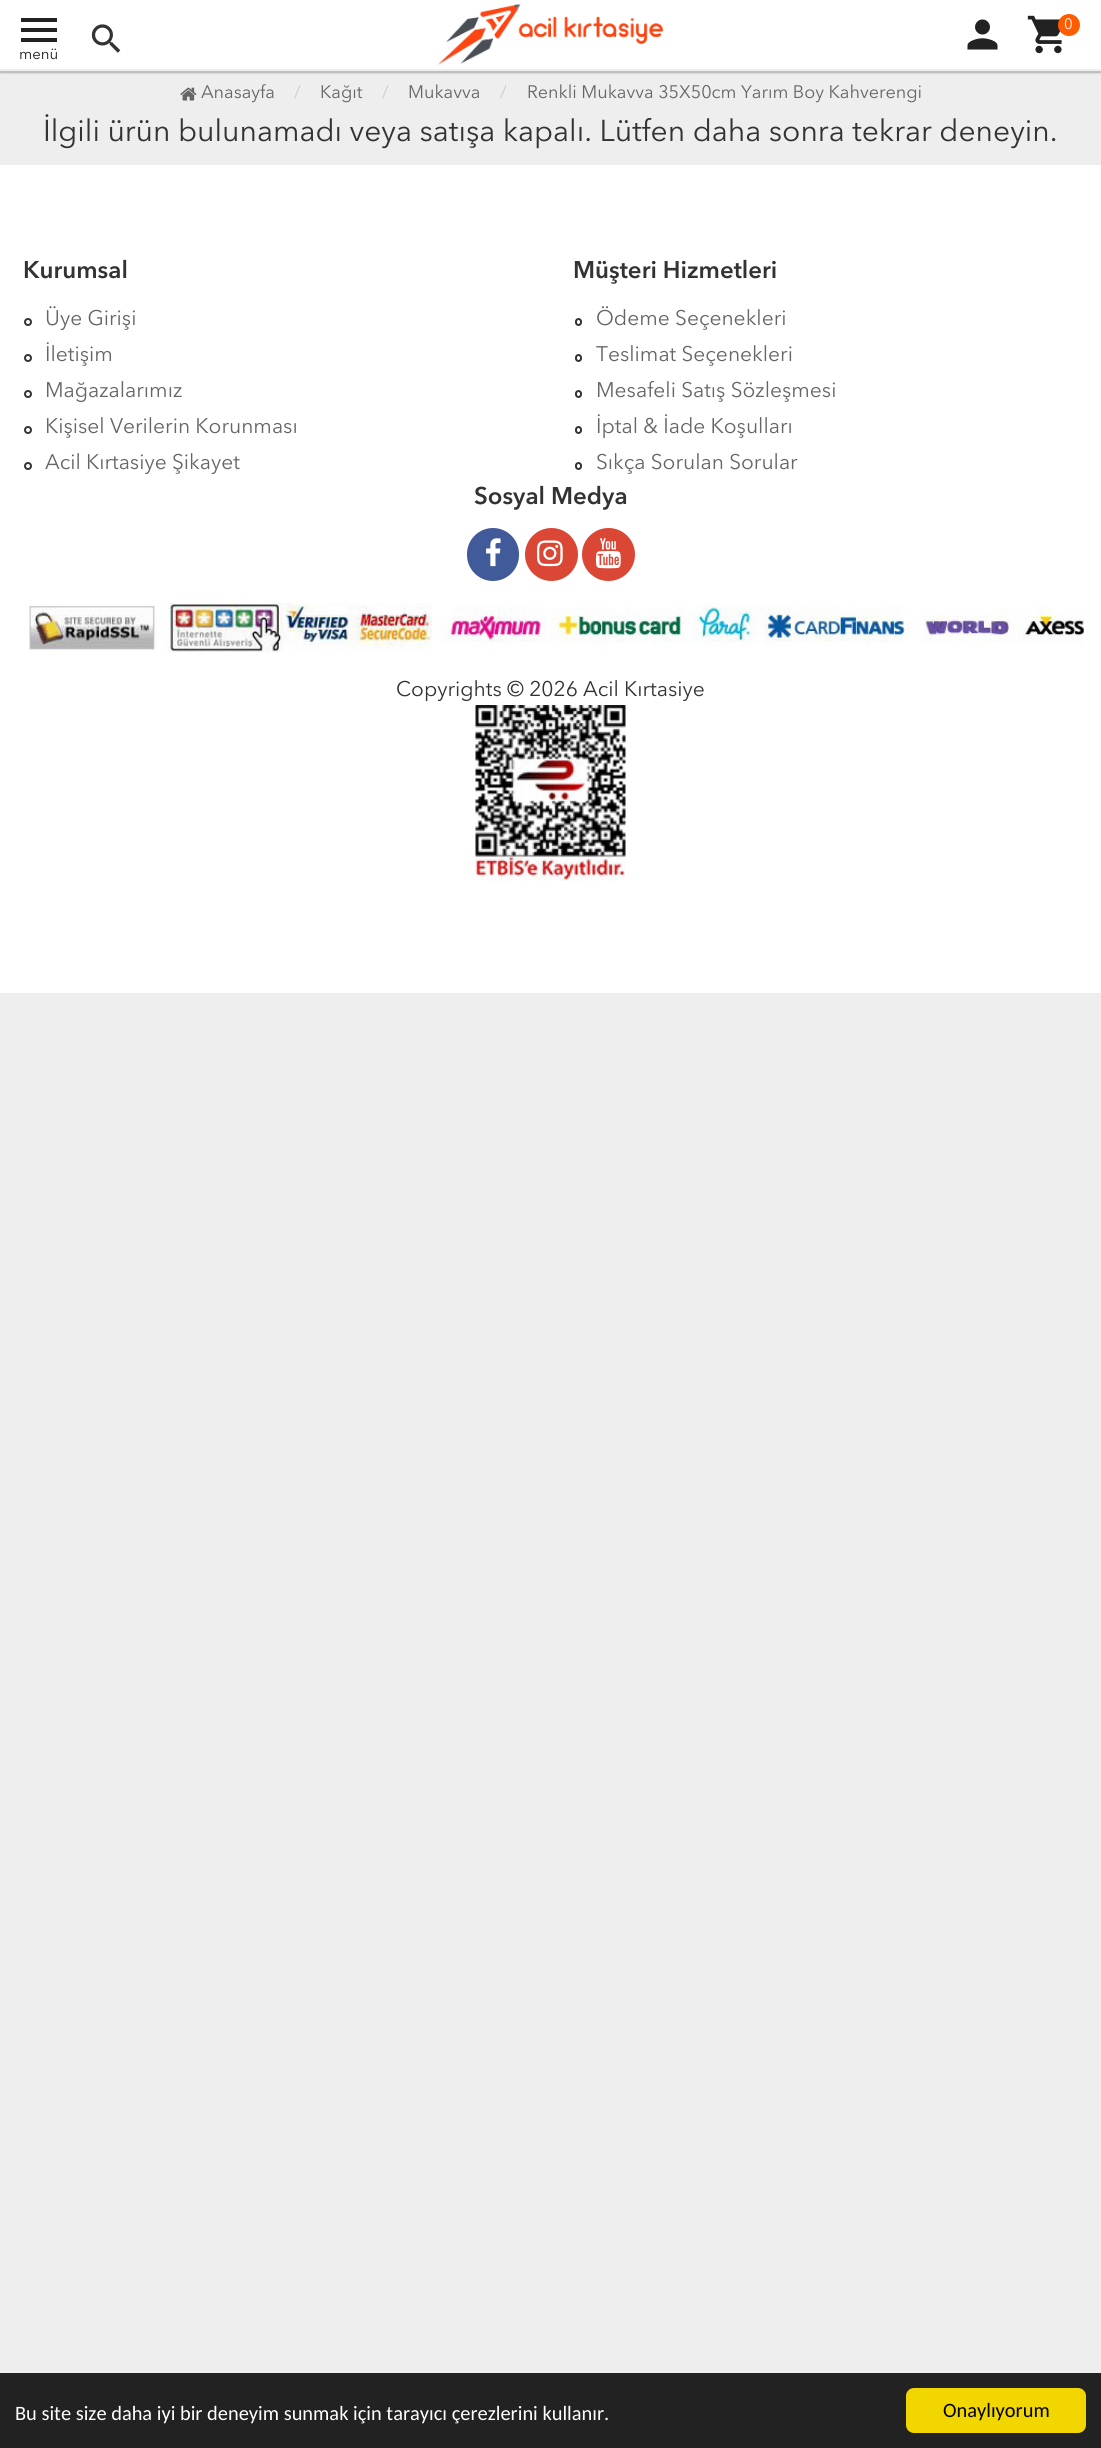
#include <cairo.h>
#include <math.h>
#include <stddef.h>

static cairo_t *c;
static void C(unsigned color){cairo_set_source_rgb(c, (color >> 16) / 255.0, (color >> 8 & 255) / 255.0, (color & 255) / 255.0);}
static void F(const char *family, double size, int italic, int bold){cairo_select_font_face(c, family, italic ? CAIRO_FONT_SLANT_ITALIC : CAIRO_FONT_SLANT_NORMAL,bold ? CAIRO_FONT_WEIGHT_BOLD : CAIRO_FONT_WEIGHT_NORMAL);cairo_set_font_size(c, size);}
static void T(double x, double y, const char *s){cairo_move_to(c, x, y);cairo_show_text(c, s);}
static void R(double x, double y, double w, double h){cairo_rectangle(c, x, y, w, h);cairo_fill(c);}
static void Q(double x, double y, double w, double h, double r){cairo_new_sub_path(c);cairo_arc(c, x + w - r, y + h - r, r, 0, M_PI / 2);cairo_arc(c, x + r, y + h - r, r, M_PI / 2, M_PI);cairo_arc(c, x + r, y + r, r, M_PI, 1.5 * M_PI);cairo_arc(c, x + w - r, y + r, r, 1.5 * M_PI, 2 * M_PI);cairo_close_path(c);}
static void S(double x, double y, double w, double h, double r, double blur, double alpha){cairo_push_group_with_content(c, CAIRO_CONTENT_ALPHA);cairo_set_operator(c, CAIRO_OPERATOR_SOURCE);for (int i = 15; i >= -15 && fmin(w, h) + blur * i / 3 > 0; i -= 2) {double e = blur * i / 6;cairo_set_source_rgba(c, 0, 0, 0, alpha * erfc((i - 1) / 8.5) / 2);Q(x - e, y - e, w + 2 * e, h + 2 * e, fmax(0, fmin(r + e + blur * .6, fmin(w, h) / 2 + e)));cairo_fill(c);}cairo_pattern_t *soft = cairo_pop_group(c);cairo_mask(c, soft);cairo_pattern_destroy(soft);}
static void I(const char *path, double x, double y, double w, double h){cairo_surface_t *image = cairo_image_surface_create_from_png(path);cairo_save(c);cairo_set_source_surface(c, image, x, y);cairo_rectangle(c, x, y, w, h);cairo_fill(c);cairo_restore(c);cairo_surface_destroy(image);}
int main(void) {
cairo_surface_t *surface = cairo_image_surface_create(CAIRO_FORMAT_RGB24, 1101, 2448);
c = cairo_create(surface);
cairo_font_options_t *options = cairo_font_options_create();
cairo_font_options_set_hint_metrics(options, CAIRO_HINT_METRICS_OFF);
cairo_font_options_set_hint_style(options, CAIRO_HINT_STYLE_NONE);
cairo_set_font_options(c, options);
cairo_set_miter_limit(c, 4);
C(0xeeeeee);
cairo_paint(c);
C(0xffffff);
R(0,0,1101,69);
C(0xdddddd);
R(0,71,1101,2);
I("1.png",438,4,225,61);
I("2.png",967,19,31,31);
I("3.png",1027,15,35,39);
C(0xff5b01);
cairo_arc(c,1069,25,11,0,2 * M_PI);
cairo_fill(c);
F("Avenir Next",15,0,0);
C(0xffffff);
T(1064,29,"0");
C(0x222222);
cairo_new_path(c);
cairo_move_to(c,21,18);
cairo_line_to(c,57,18);
cairo_line_to(c,57,22);
cairo_line_to(c,21,22);
cairo_close_path(c);
cairo_move_to(c,21,32);
cairo_line_to(c,21,28);
cairo_line_to(c,57,28);
cairo_line_to(c,57,32);
cairo_close_path(c);
cairo_move_to(c,21,42);
cairo_line_to(c,21,38);
cairo_line_to(c,57,38);
cairo_line_to(c,57,42);
cairo_close_path(c);
cairo_fill(c);
T(19,59,"menü");
I("4.png",91,24,30,29);
C(0x000000);
S(0,71,1101,2,0,1,.2);
C(0xeeeeee);
R(0,69,1101,2);
I("5.png",180,87,17,14);
F("Avenir Next",18,0,0);
C(0x666666);
T(201,98,"Anasayfa");
C(0xcccccc);
T(294,98,"/");
C(0x666666);
T(320,98,"Kağıt");
C(0xcccccc);
T(382,98,"/");
C(0x666666);
T(408,98,"Mukavva");
C(0xcccccc);
T(500,98,"/");
C(0x666666);
T(527,98,"Renkli Mukavva 35X50cm Yarım Boy Kahverengi");
F("Avenir Next",30,0,0);
C(0x333333);
T(43,141,"İlgili ürün bulunamadı veya satışa kapalı. Lütfen daha sonra tekrar deneyin.");
C(0xffffff);
R(0,165,1101,828);
F("Avenir Next SemiBold",24,0,0);
C(0x333333);
T(23,278,"Kurumsal");
cairo_new_path(c);
cairo_arc(c,28,322,3,0,2 * M_PI);
cairo_stroke(c);
F("Avenir Next",21,0,0);
C(0x666666);
T(45,325,"Üye Girişi");
cairo_new_path(c);
cairo_arc(c,28,358,3,0,2 * M_PI);
C(0x333333);
cairo_stroke(c);
C(0x666666);
T(45,361,"İletişim");
cairo_new_path(c);
cairo_arc(c,28,394,3,0,2 * M_PI);
C(0x333333);
cairo_stroke(c);
C(0x666666);
T(45,397,"Mağazalarımız");
cairo_new_path(c);
cairo_arc(c,28,430,3,0,2 * M_PI);
C(0x333333);
cairo_stroke(c);
C(0x666666);
T(45,433,"Kişisel Verilerin Korunması");
cairo_new_path(c);
cairo_arc(c,28,466,3,0,2 * M_PI);
C(0x333333);
cairo_stroke(c);
C(0x666666);
T(45,469,"Acil Kırtasiye Şikayet");
F("Avenir Next SemiBold",24,0,0);
C(0x333333);
T(573,278,"Müşteri Hizmetleri");
Q(576,319,5,6,2.5);
cairo_stroke(c);
F("Avenir Next",21,0,0);
C(0x666666);
T(596,325,"Ödeme Seçenekleri");
Q(576,355,5,6,2.5);
C(0x333333);
cairo_stroke(c);
C(0x666666);
T(596,361,"Teslimat Seçenekleri");
Q(576,391,5,6,2.5);
C(0x333333);
cairo_stroke(c);
C(0x666666);
T(596,397,"Mesafeli Satış Sözleşmesi");
Q(576,427,5,6,2.5);
C(0x333333);
cairo_stroke(c);
C(0x666666);
T(596,433,"İptal & İade Koşulları");
Q(576,463,5,6,2.5);
C(0x333333);
cairo_stroke(c);
C(0x666666);
T(596,469,"Sıkça Sorulan Sorular");
F("Avenir Next SemiBold",24,0,0);
C(0x333333);
T(474,504,"Sosyal Medya");
C(0x415a99);
Q(467,528,52,53,26);
cairo_fill(c);
I("6.png",486,538,15,29);
C(0xda4735);
cairo_arc(c,551.5,554.5,26.5,0,2 * M_PI);
cairo_fill(c);
I("7.png",537,540,26,27);
cairo_arc(c,608.5,554.5,26.5,0,2 * M_PI);
cairo_fill(c);
I("8.png",595,538,26,31);
I("9.png",29,603,1055,50);
F("Avenir Next",21,0,0);
C(0x333333);
T(396,696,"Copyrights © 2026 Acil Kırtasiye");
I("10.png",475,705,151,176);
C(0x222222);
R(0,2373,1101,75);
F("Carlito",20.4,0,0);
C(0xffffff);
T(15,2420,"Bu site size daha iyi bir deneyim sunmak için tarayıcı çerezlerini kullanır.");
C(0xf1d600);
Q(906,2388,180,45,8);
cairo_fill(c);
C(0x000000);
T(943,2417,"Onaylıyorum");
cairo_surface_write_to_png(surface, "o.png");
cairo_font_options_destroy(options);
cairo_destroy(c);
cairo_surface_destroy(surface);
return 0;
}
